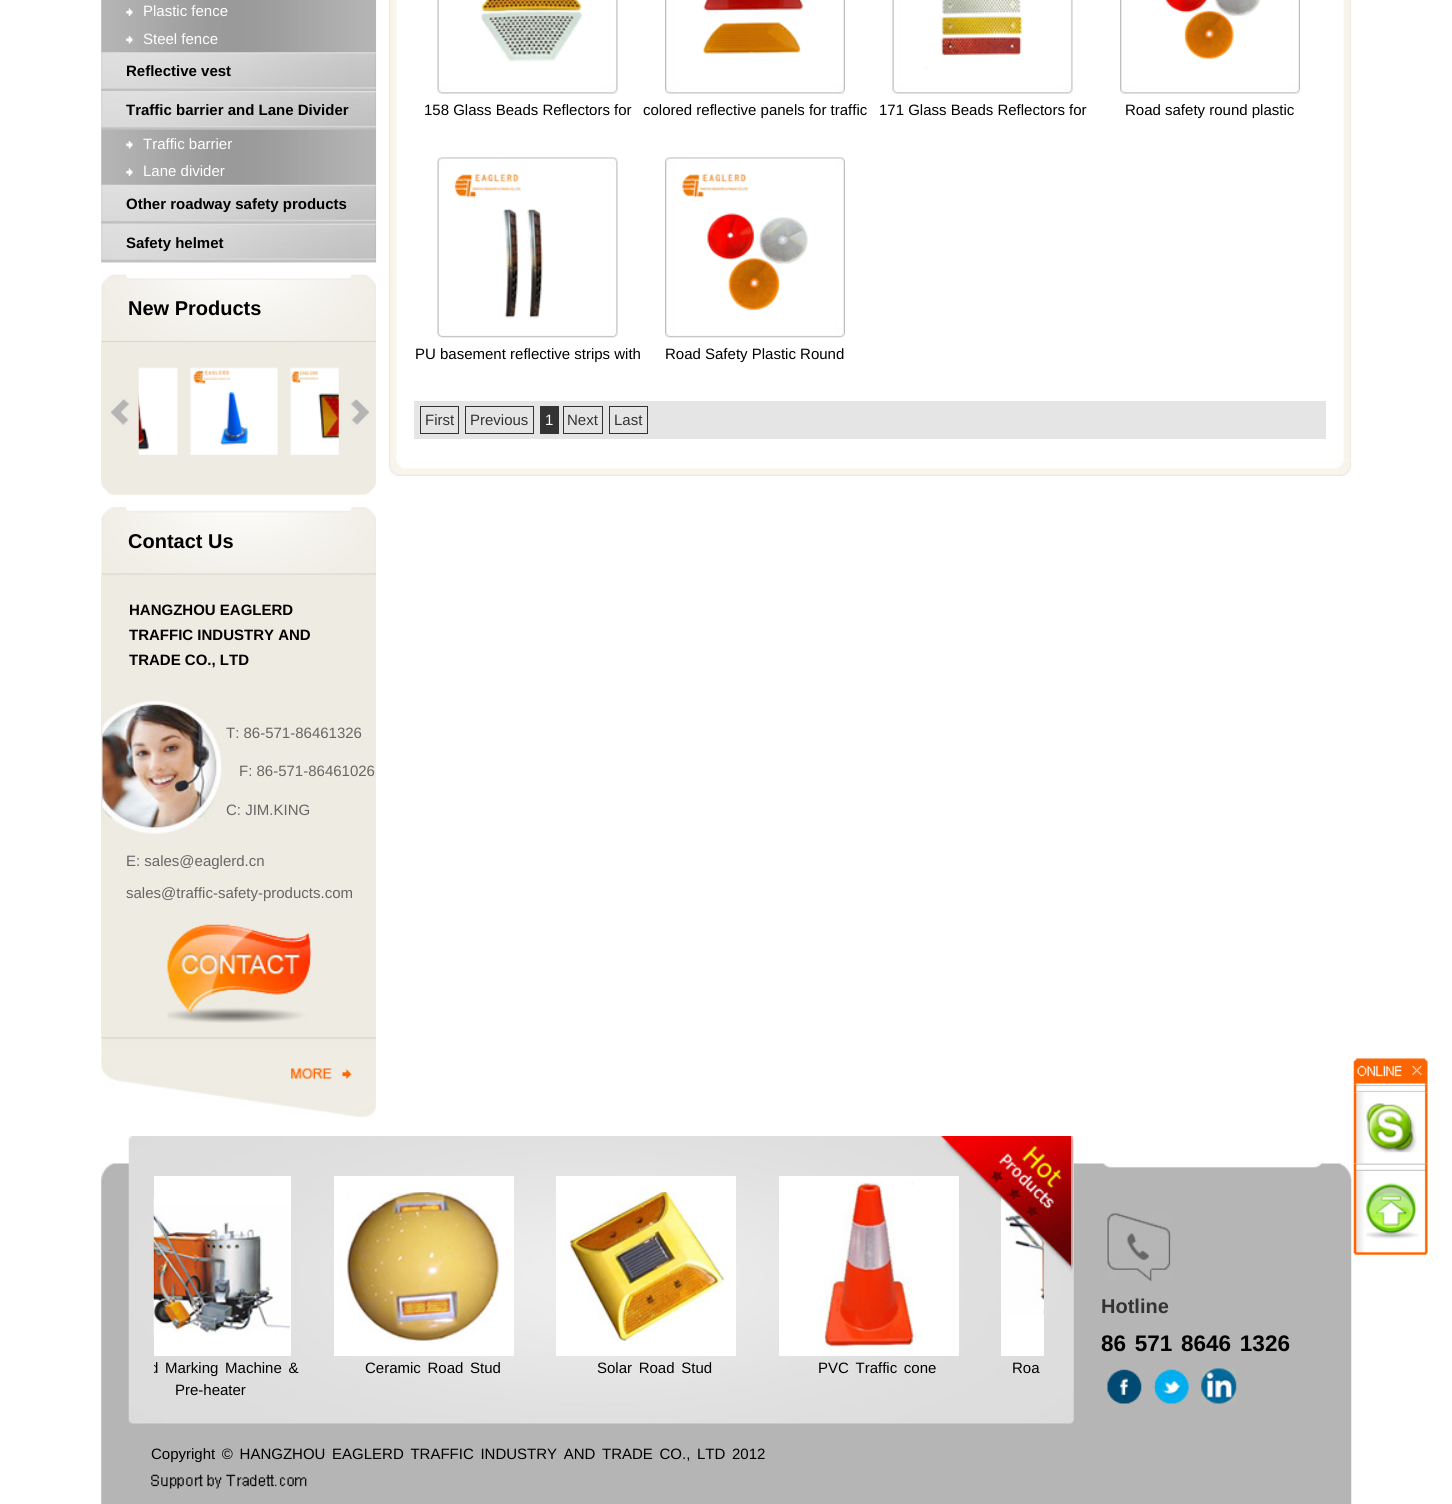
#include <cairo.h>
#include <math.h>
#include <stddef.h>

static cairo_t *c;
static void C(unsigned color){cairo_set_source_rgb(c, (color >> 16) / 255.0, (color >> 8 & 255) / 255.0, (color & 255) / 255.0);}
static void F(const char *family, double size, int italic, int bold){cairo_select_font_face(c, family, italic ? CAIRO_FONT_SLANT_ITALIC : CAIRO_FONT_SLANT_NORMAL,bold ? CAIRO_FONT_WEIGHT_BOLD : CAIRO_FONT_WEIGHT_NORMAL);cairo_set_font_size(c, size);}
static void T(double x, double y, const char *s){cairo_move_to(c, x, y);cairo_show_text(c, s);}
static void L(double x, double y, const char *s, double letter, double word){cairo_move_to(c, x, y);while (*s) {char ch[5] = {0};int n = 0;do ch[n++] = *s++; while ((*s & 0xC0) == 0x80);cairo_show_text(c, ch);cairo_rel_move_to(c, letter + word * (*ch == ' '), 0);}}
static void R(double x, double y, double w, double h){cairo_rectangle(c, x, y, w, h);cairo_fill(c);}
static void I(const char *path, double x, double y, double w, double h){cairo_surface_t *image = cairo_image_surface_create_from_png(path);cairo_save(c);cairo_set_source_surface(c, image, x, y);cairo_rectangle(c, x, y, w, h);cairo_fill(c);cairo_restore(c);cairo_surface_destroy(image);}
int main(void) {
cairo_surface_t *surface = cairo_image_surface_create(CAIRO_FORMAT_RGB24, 1452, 1504);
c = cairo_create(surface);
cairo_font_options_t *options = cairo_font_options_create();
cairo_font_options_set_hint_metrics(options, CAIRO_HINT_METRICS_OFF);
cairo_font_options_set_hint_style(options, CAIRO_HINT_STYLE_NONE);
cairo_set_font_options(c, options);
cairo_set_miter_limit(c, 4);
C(0xffffff);
cairo_paint(c);
I("1.png",101,0,276,263);
I("2.png",101,0,1,53);
I("3.png",126,8,7,8);
F("Liberation Sans",15,0,0);
C(0xffffff);
T(143,16,"Plastic fence");
I("4.png",126,36,7,8);
T(143,44,"Steel fence");
I("5.png",101,52,275,39);
F("Liberation Sans",15,0,1);
C(0x000000);
T(126,76,"Reflective vest");
I("7.png",101,129,1,56);
I("6.png",101,91,275,39);
T(126,115,"Traffic barrier and Lane Divider");
I("4.png",126,141,7,8);
F("Liberation Sans",15,0,0);
C(0xffffff);
T(143,149,"Traffic barrier");
I("3.png",126,168,7,8);
T(143,176,"Lane divider");
I("8.png",101,184,275,40);
F("Liberation Sans",15,0,1);
C(0x000000);
T(126,209,"Other roadway safety products");
I("9.png",101,223,275,40);
T(126,248,"Safety helmet");
I("10.png",101,274,275,68);
F("Liberation Sans",20,0,1);
T(128,315,"New Products");
C(0xeeebe2);
R(101,342,275,138);
I("11.png",111,398,18,27);
I("12.png",138,367,40,88);
I("13.png",190,367,88,88);
I("14.png",290,367,49,88);
I("15.png",349,399,20,26);
I("16.png",101,480,275,15);
I("17.png",101,507,275,68);
C(0x000000);
T(128,548,"Contact Us");
C(0xeeebe2);
R(101,575,275,463);
F("Liberation Sans",15,0,1);
C(0x000000);
T(129,615,"HANGZHOU EAGLERD");
T(129,640,"TRAFFIC INDUSTRY AND");
T(129,665,"TRADE CO., LTD");
I("18.png",101,701,121,133);
F("Liberation Sans",15,0,0);
C(0x666666);
T(226,738,"T: 86-571-86461326");
T(239,776,"F: 86-571-86461026");
T(226,815,"C: JIM.KING");
T(126,866,"E: sales@eaglerd.cn");
T(126,898,"sales@traffic-safety-products.com");
I("19.png",167,921,145,102);
I("20.png",101,1037,275,80);
I("21.png",291,1068,61,11);
I("34.png",389,459,962,17);
I("22.png",389,0,962,460);
I("23.png",437,0,181,94);
I("24.png",481,0,104,62);
C(0x000000);
T(424,115,"158 Glass Beads Reflectors for");
I("25.png",665,0,180,94);
I("26.png",702,0,102,54);
T(643,115,"colored reflective panels for traffic");
I("23.png",892,0,181,94);
I("27.png",925,0,98,70);
T(879,115,"171 Glass Beads Reflectors for");
I("28.png",1120,0,180,94);
I("29.png",1165,0,95,60);
T(1125,115,"Road safety round plastic");
I("30.png",437,157,181,181);
I("31.png",454,173,89,145);
T(415,359,"PU basement reflective strips with");
I("32.png",665,157,180,181);
I("33.png",682,173,126,137);
T(665,359,"Road Safety Plastic Round");
C(0xe5e5e5);
R(414,401,912,38);
cairo_rectangle(c,420.5,406.5,38,27);
C(0x333333);
cairo_set_line_width(c,1);
cairo_stroke(c);
T(425,425,"First");
cairo_rectangle(c,465.5,406.5,68,27);
cairo_stroke(c);
T(470,425,"Previous");
R(540,406,19,28);
C(0xffffff);
T(545,425,"1");
cairo_rectangle(c,563.5,406.5,39,27);
C(0x333333);
cairo_stroke(c);
T(567,425,"Next");
cairo_rectangle(c,609.5,406.5,38,27);
cairo_stroke(c);
T(614,425,"Last");
I("36.png",1353,1084,75,9);
I("35.png",1353,1058,75,27);
I("37.png",1353,1092,75,72);
I("38.png",1365,1103,52,50);
I("39.png",1353,1163,75,8);
I("40.png",1353,1171,75,80);
I("41.png",1366,1183,53,56);
I("42.png",1353,1251,75,4);
I("43.png",101,1163,1251,341);
I("44.png",1107,1213,64,68);
F("Liberation Sans",20,0,1);
T(1101,1313,"Hotline");
F("Liberation Sans",22.5,0,1);
C(0x000000);
L(1101,1351,"86 571 8646 1326",0,2.5);
I("45.png",1107,1368,35,36);
I("46.png",1153,1368,36,36);
I("47.png",1201,1368,36,36);
I("48.png",128,1136,946,288);
C(0xffffff);
R(779,1176,180,180);
R(1001,1197,43,159);
I("54.png",1004,1200,40,115);
I("49.png",941,1136,132,130);
R(154,1176,137,180);
I("50.png",153,1197,137,138);
cairo_save(c);
cairo_rectangle(c,154,1176,890,238);
cairo_clip(c);
F("Liberation Sans",15,0,0);
C(0x000000);
L(150,1373,"d Marking Machine &",0,2.5);
cairo_restore(c);
F("Liberation Sans",15,0,0);
C(0x000000);
T(175,1395,"Pre-heater");
C(0xffffff);
R(334,1176,180,180);
I("51.png",347,1192,153,149);
C(0x000000);
L(365,1373,"Ceramic Road Stud",0,2.5);
C(0xffffff);
R(556,1176,180,180);
I("52.png",569,1192,155,149);
C(0x000000);
L(597,1373,"Solar Road Stud",0,2.5);
I("53.png",824,1182,90,168);
L(818,1373,"PVC Traffic cone",0,2.5);
L(1012,1373,"Roa",0,2.5);
L(151,1459,"Copyright © HANGZHOU EAGLERD TRAFFIC INDUSTRY AND",0,2.5);
L(602,1459,"TRADE CO., LTD 2012",0,2.5);
I("55.png",151,1474,156,15);
cairo_surface_write_to_png(surface, "o.png");
cairo_font_options_destroy(options);
cairo_destroy(c);
cairo_surface_destroy(surface);
return 0;
}
